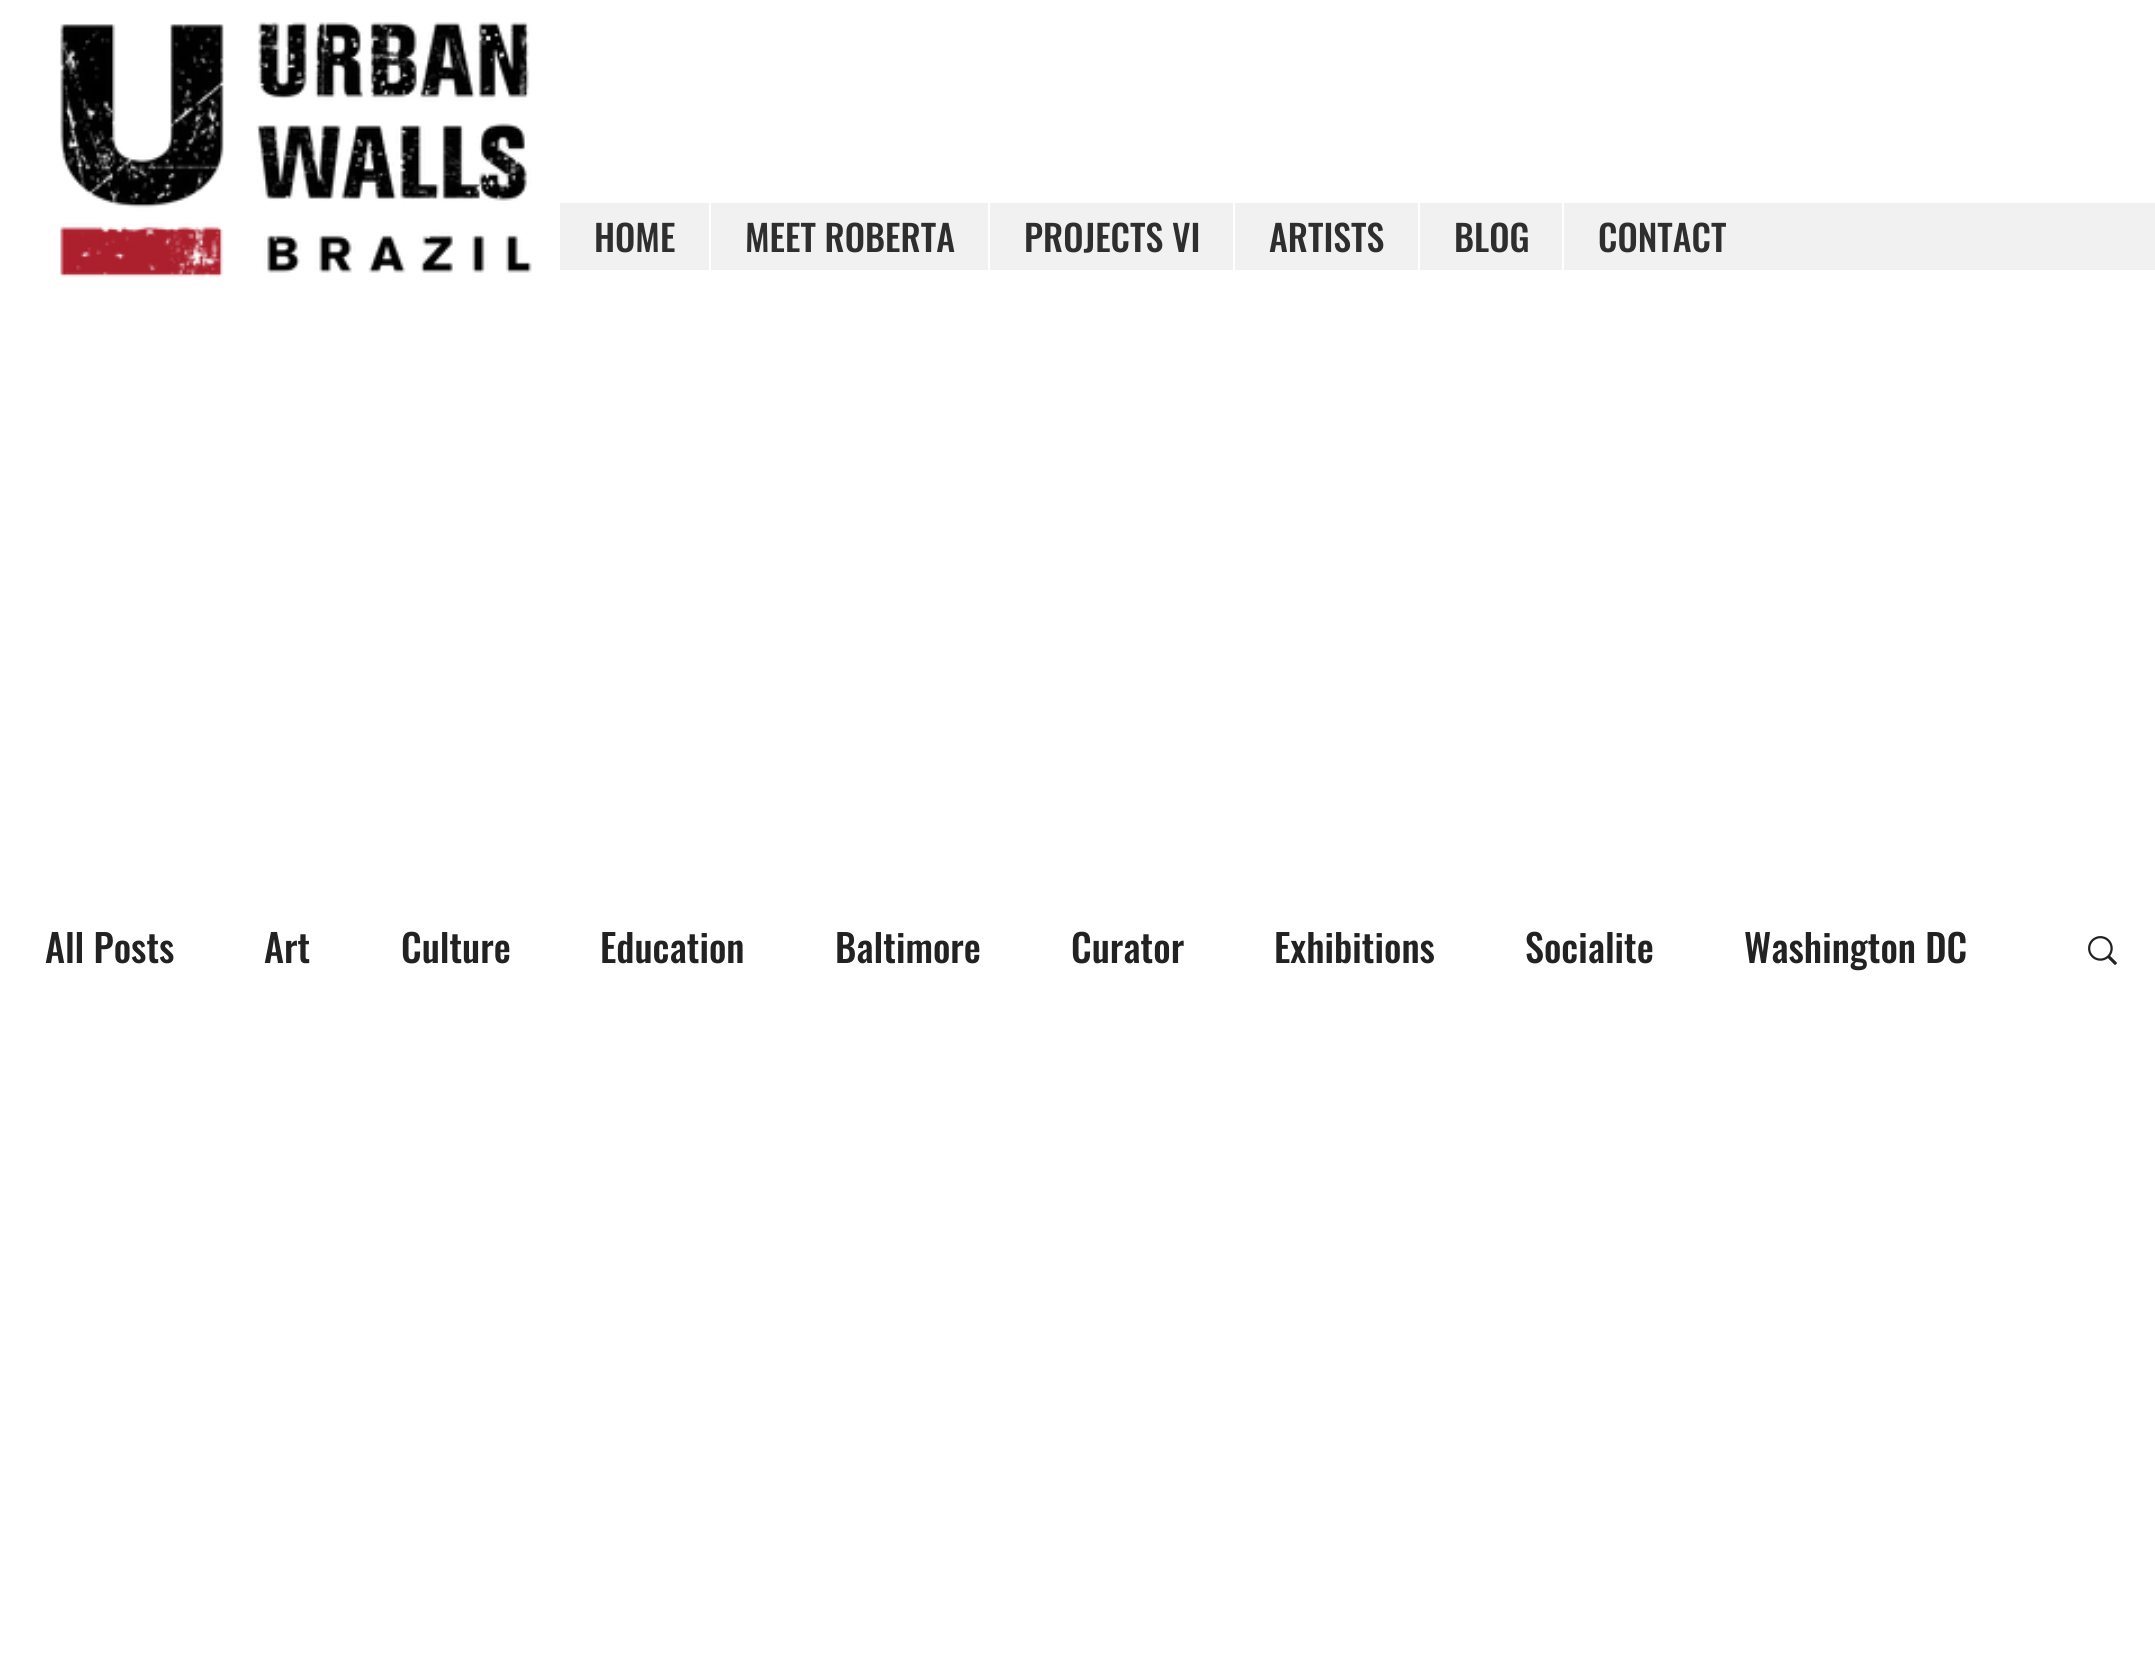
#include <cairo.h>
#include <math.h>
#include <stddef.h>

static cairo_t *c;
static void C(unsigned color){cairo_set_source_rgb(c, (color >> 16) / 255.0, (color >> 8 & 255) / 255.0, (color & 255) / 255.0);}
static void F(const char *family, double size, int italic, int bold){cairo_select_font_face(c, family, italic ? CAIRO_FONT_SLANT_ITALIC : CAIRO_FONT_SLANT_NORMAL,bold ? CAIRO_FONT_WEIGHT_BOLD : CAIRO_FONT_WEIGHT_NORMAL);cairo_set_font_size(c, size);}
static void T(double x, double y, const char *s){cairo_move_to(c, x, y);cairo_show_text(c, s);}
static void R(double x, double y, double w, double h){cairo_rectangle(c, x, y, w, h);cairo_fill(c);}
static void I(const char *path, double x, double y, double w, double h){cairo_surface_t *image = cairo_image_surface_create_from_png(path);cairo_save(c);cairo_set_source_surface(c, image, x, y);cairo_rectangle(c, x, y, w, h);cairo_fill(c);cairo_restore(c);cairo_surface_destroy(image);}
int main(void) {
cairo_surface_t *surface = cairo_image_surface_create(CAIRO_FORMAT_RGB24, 2155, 1680);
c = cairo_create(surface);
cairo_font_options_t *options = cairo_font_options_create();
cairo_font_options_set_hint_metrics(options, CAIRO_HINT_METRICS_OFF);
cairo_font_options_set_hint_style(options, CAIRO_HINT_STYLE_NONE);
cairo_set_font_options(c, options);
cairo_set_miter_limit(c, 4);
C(0xffffff);
cairo_paint(c);
I("1.png",60,24,164,254);
I("2.png",256,22,276,251);
C(0xf1f1f1);
R(560,203,1595,67);
F("Oswald Medium",36,0,0);
C(0x2f2e2e);
T(594,252,"HOME");
C(0xffffff);
R(709,203,2,67);
C(0x2f2e2e);
T(745,252,"MEET ROBERTA");
C(0xffffff);
R(988,203,2,67);
C(0x2f2e2e);
T(1024,252,"PROJECTS VI");
C(0xffffff);
R(1233,203,2,67);
C(0x2f2e2e);
T(1269,252,"ARTISTS");
C(0xffffff);
R(1418,203,2,67);
C(0x2f2e2e);
T(1454,252,"BLOG");
C(0xffffff);
R(1562,203,2,67);
C(0x2f2e2e);
T(1598,252,"CONTACT");
F("Oswald Medium",38.25,0,0);
C(0x222222);
T(45,963,"All Posts");
T(264,963,"Art");
T(401,963,"Culture");
T(600,963,"Education");
T(835,963,"Baltimore");
T(1071,963,"Curator");
T(1274,963,"Exhibitions");
T(1525,963,"Socialite");
T(1744,963,"Washington DC");
I("3.png",2088,936,29,29);
cairo_surface_write_to_png(surface, "o.png");
cairo_font_options_destroy(options);
cairo_destroy(c);
cairo_surface_destroy(surface);
return 0;
}
